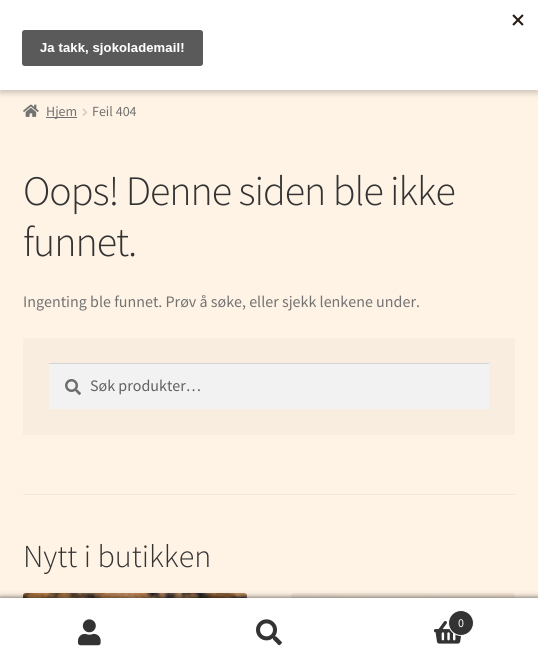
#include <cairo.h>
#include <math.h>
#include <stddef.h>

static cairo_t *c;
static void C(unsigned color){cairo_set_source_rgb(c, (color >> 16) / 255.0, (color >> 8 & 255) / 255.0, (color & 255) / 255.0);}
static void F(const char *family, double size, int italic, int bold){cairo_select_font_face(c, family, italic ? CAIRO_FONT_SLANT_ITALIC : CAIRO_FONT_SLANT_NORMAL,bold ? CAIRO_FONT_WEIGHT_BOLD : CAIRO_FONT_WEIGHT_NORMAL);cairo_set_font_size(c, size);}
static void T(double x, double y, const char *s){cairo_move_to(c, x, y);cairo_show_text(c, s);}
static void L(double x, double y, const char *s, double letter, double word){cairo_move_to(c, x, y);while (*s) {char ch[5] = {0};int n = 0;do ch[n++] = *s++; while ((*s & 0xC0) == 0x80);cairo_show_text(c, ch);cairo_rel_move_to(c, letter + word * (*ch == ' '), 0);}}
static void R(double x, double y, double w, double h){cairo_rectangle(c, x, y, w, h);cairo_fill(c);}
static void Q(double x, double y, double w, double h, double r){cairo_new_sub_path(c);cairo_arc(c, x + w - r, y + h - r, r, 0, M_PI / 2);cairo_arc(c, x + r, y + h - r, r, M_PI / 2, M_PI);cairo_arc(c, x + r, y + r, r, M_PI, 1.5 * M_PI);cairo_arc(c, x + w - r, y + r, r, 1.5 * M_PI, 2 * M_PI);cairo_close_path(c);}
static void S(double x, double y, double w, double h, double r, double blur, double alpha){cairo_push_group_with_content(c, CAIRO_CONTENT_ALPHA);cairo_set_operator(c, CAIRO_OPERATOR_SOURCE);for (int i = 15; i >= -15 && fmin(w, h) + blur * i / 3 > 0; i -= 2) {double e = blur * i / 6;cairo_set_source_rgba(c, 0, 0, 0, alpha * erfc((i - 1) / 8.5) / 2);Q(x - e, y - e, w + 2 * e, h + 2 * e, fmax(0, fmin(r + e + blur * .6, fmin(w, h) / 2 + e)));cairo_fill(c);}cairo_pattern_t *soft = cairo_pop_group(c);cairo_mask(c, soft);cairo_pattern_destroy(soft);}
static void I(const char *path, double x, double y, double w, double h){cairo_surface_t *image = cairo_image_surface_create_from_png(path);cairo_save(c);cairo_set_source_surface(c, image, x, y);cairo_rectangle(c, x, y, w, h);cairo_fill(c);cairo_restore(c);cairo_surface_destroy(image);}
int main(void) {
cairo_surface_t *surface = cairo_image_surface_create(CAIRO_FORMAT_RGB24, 538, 667);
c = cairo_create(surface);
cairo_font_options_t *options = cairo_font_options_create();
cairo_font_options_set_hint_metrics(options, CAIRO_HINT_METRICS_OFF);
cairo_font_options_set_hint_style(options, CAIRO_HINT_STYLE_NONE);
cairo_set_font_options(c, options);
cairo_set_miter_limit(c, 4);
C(0xfff3e5);
cairo_paint(c);
C(0x000000);
S(0,3,538,90,0,3,.2);
C(0xffffff);
R(0,0,538,90);
I("1.png",22,14,502,52);
I("2.png",23,104,16,13);
C(0x727272);
R(46,117,31,1);
F("Source Sans Pro",14,0,0);
T(46,116,"Hjem");
I("3.png",82,108,6,8);
T(92,116,"Feil 404");
F("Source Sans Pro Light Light",41.9,0,0);
C(0x333333);
L(23,205,"Oops! Denne siden ble ikke",-1,0);
L(23,256,"funnet.",-1,0);
F("Source Sans Pro",16,0,0);
C(0x727272);
T(23,307,"Ingenting ble funnet. Prøv å søke, eller sjekk lenkene under.");
C(0xf9ede0);
R(23,338,492,97);
C(0xf2f2f2);
R(49,364,440,45);
I("4.png",65,379,16,16);
C(0xd4d4d4);
R(49,363,440,1);
C(0x616161);
T(90,391,"Søk produkter…");
C(0xf2e7da);
R(23,494,492,1);
F("Source Sans Pro Light Light",32,0,0);
C(0x333333);
T(23,567,"Nytt i butikken");
I("5.png",23,593,224,5);
I("6.png",291,593,224,5);
C(0x000000);
S(0,598,538,69,0,3,.7);
C(0xffffff);
R(0,598,538,1);
R(0,599,538,68);
I("7.png",78,619,23,27);
I("8.png",256,619,26,27);
I("9.png",434,621,28,23);
C(0x333333);
cairo_arc(c,461,623,12.5,0,2 * M_PI);
cairo_fill_preserve(c);
C(0xffffff);
cairo_set_line_width(c,1);
cairo_stroke(c);
F("Source Sans Pro",12,0,0);
T(458,627,"0");
cairo_surface_write_to_png(surface, "o.png");
cairo_font_options_destroy(options);
cairo_destroy(c);
cairo_surface_destroy(surface);
return 0;
}
